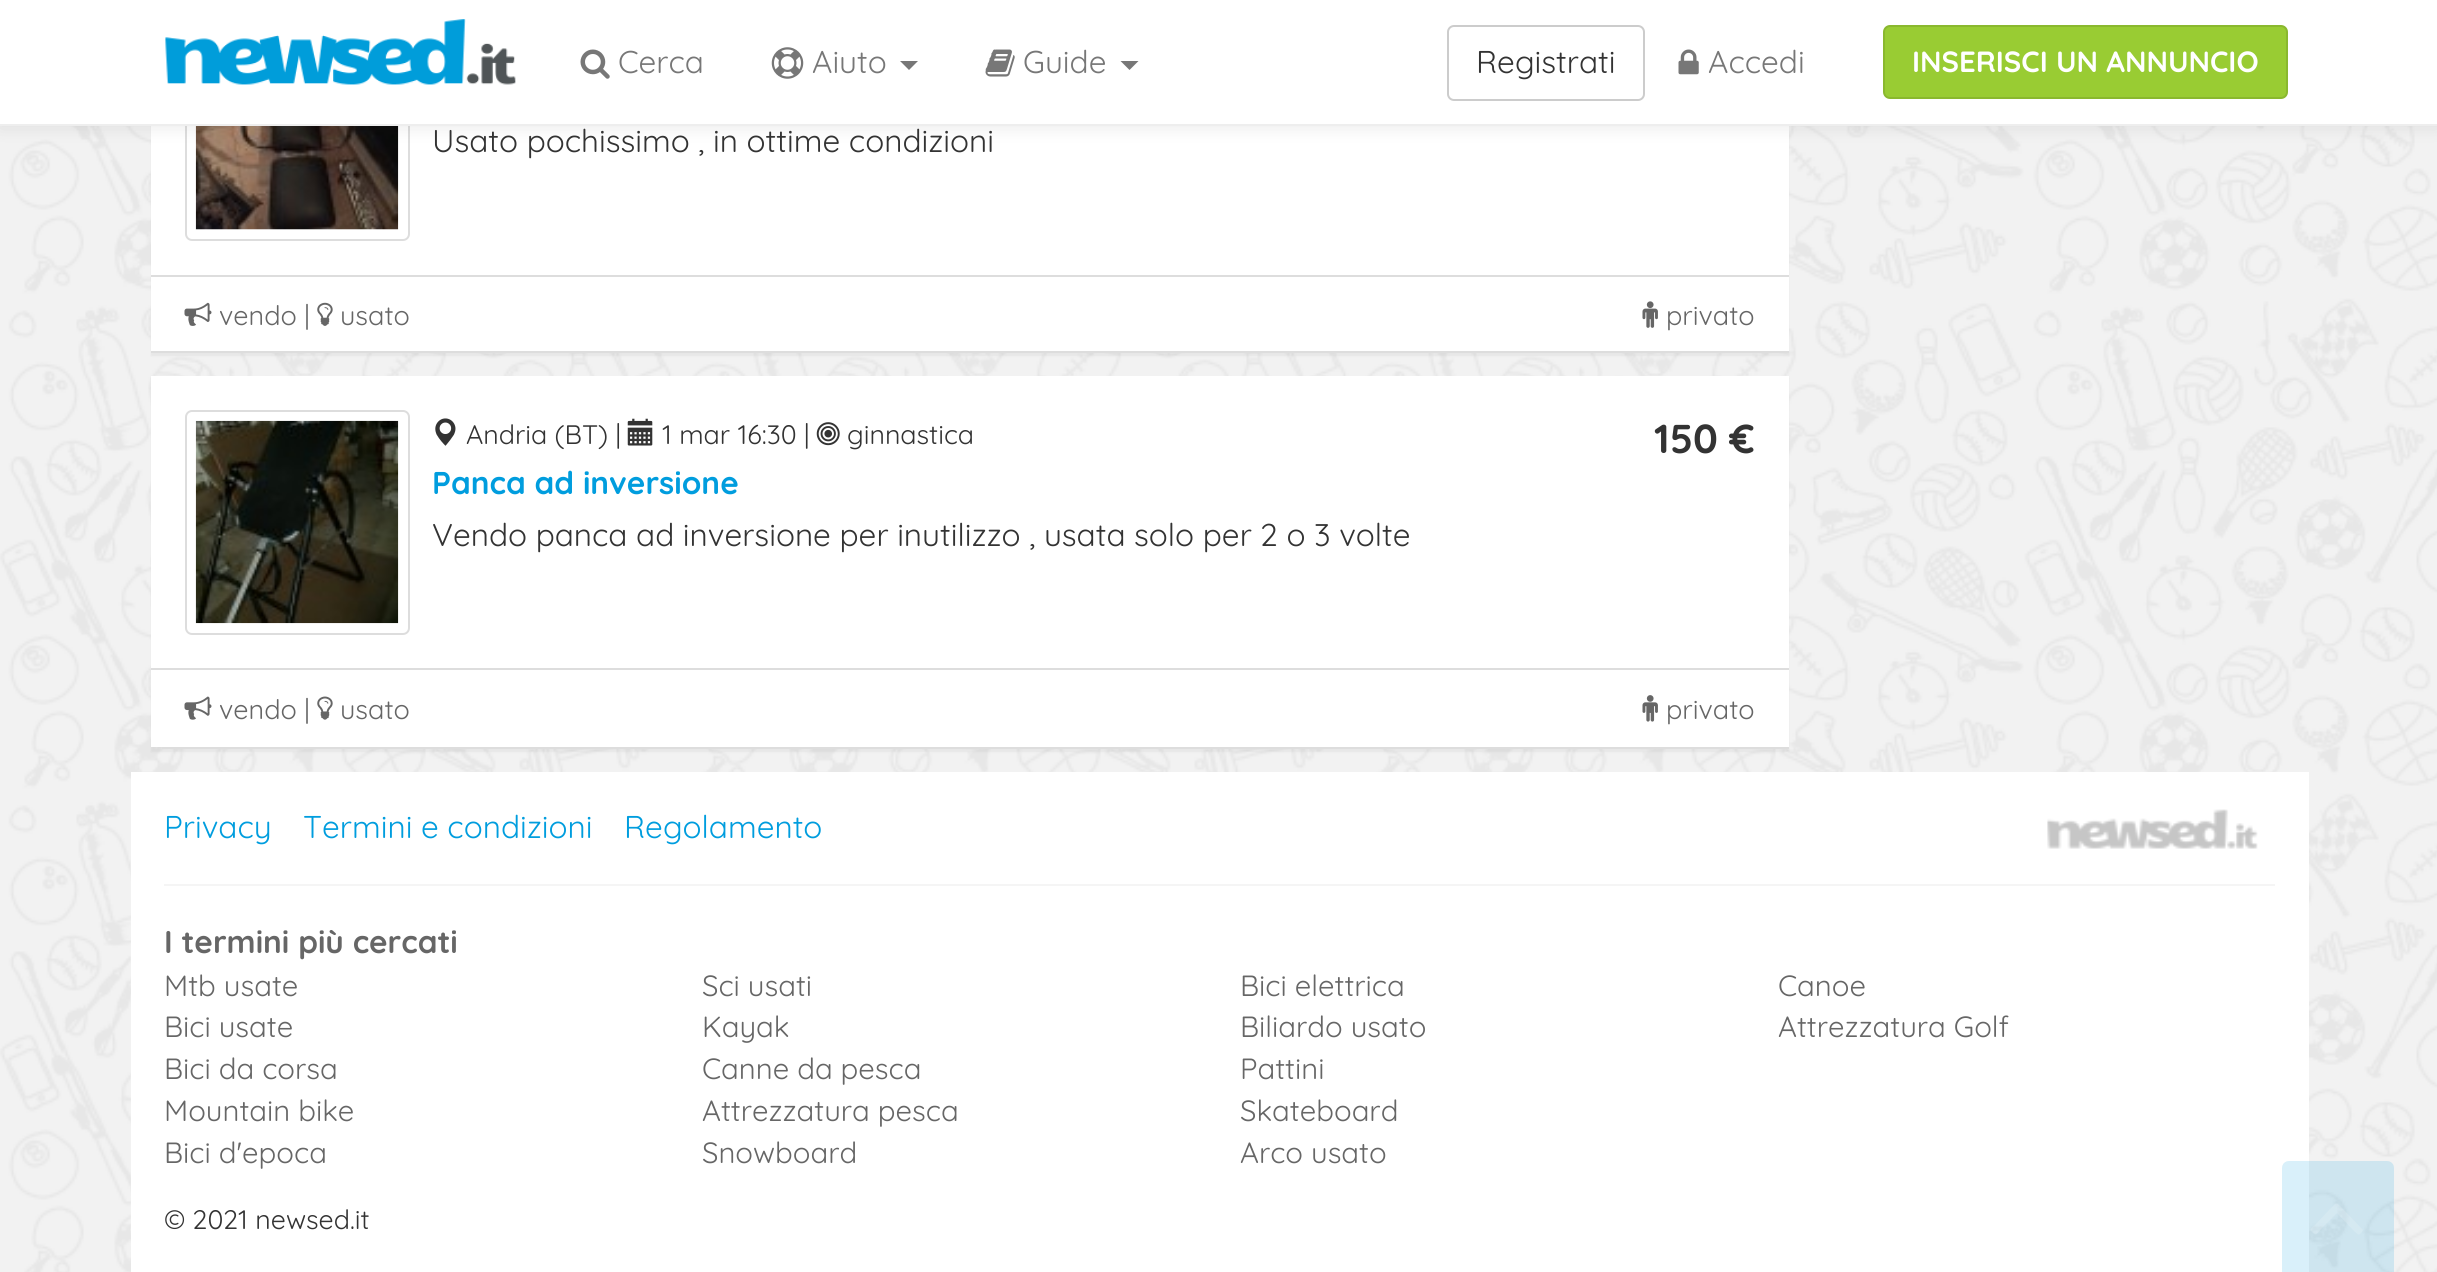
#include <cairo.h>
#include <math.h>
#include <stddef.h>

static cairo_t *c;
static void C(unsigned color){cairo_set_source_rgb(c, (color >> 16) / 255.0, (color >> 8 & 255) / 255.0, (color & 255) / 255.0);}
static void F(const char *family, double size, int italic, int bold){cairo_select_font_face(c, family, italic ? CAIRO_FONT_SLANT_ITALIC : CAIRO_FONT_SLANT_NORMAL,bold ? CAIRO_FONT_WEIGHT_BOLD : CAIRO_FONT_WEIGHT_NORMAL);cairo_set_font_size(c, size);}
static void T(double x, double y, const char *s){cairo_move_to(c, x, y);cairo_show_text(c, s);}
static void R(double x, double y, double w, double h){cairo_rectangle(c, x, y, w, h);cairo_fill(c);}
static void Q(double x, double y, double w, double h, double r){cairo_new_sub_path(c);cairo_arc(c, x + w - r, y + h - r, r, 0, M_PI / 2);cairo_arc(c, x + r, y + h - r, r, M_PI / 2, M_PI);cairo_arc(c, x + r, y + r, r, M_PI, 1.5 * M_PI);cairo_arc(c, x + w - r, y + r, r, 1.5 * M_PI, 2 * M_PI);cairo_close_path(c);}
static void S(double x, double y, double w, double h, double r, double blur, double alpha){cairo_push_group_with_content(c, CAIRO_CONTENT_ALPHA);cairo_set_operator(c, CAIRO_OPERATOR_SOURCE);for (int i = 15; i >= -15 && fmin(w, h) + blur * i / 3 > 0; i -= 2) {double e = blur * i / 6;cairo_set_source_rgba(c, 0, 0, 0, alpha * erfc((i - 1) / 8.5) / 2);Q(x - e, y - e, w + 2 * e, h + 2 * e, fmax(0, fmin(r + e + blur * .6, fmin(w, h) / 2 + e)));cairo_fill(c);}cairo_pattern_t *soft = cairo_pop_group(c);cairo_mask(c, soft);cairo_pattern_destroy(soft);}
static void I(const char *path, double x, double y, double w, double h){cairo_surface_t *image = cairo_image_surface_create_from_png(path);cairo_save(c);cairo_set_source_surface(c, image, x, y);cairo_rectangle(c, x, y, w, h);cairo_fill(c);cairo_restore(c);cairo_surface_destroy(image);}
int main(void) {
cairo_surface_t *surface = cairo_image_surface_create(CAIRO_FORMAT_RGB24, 2437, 1272);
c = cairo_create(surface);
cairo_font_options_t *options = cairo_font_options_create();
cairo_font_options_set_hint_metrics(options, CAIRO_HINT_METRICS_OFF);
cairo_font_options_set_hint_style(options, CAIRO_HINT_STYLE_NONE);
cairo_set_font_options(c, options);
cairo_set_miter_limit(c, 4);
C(0xffffff);
cairo_paint(c);
I("1.png",0,126,2437,1146);
C(0x000000);
S(151,-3,1638,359,0,1,.05);
C(0xffffff);
R(151,126,1638,225);
Q(186,17,223,223,6);
C(0xdddddd);
cairo_stroke(c);
I("7.png",195,126,204,104);
C(0x000000);
S(0,0,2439,126,0,9,.1);
C(0xffffff);
R(0,0,2437,124);
C(0xeeeeee);
R(0,124,2437,2);
I("2.png",165,19,351,66);
I("3.png",580,49,30,30);
F("Quicksand",31.5,0,0);
C(0x777777);
T(618,73,"Cerca");
I("4.png",771,47,33,32);
T(812,73,"Aiuto");
cairo_new_path(c);
cairo_move_to(c,900,61);
cairo_line_to(c,918,61);
cairo_line_to(c,909,70);
cairo_close_path(c);
cairo_fill(c);
I("5.png",985,49,30,28);
T(1023,73,"Guide");
cairo_new_path(c);
cairo_move_to(c,1120.5,61);
cairo_line_to(c,1138.5,61);
cairo_line_to(c,1129.5,70);
cairo_close_path(c);
cairo_fill(c);
Q(1448,26,196,74,6);
C(0xcccccc);
cairo_stroke(c);
C(0x333333);
T(1476,73,"Registrati");
I("6.png",1678,49,21,26);
C(0x777777);
T(1708,73,"Accedi");
C(0x99cc33);
Q(1884,26,403,72,6);
cairo_fill_preserve(c);
C(0x8ab82e);
cairo_stroke(c);
F("Quicksand",29.25,0,1);
C(0xffffff);
T(1912,72,"INSERISCI UN ANNUNCIO");
C(0xdddddd);
R(151,351,1638,2);
F("Quicksand",31.5,0,0);
C(0x333333);
T(432,152,"Usato pochissimo , in ottime condizioni");
C(0xdddddd);
R(151,275,1638,2);
I("8.png",184,302,28,24);
F("Quicksand",27,0,0);
C(0x666666);
T(219,325,"vendo |");
I("9.png",317,302,16,24);
T(340,325,"usato");
I("10.png",1642,301,16,27);
T(1666,325,"privato");
C(0x000000);
S(151,378,1638,374,0,1,.05);
C(0xffffff);
R(151,376,1638,371);
C(0xdddddd);
R(162,747,1627,2);
Q(186,411,223,223,6);
cairo_stroke(c);
I("11.png",195,420,204,204);
I("12.png",435,418,21,28);
F("Quicksand",26.75,0,0);
C(0x333333);
T(466,444,"Andria (BT) |");
I("13.png",627,418,26,28);
T(662,444,"1 mar 16:30 |");
I("14.png",816,422,24,24);
T(847,444,"ginnastica");
F("Quicksand",31.5,0,1);
C(0x009dde);
T(432,494,"Panca ad inversione");
F("Quicksand",31.5,0,0);
C(0x333333);
T(432,546,"Vendo panca ad inversione per inutilizzo , usata solo per 2 o 3 volte");
F("Quicksand",40.5,0,1);
T(1654,453,"150 €");
C(0xdddddd);
R(151,668,1638,2);
I("15.png",184,696,28,24);
F("Quicksand",27,0,0);
C(0x666666);
T(219,719,"vendo |");
I("16.png",317,696,16,24);
T(340,719,"usato");
I("17.png",1642,695,16,27);
T(1666,719,"privato");
C(0xffffff);
R(131,772,2178,500);
F("Quicksand",31.5,0,0);
C(0x009dde);
T(164,838,"Privacy");
T(303,838,"Termini e condizioni");
T(624,838,"Regolamento");
I("18.png",2047,809,211,40);
C(0xf5f5f5);
R(164,884,2111,2);
F("Quicksand",31.5,0,1);
C(0x666666);
T(164,953,"I termini più cercati");
F("Quicksand",29.25,0,0);
T(164,996,"Mtb usate");
T(164,1037,"Bici usate");
T(164,1079,"Bici da corsa");
T(164,1121,"Mountain bike");
T(164,1163,"Bici d'epoca");
T(702,996,"Sci usati");
T(702,1037,"Kayak");
T(702,1079,"Canne da pesca");
T(702,1121,"Attrezzatura pesca");
T(702,1163,"Snowboard");
T(1240,996,"Bici elettrica");
T(1240,1037,"Biliardo usato");
T(1240,1079,"Pattini");
T(1240,1121,"Skateboard");
T(1240,1163,"Arco usato");
T(1778,996,"Canoe");
T(1778,1037,"Attrezzatura Golf");
F("Quicksand",26.75,0,0);
C(0x333333);
T(164,1229,"© 2021 newsed.it");
cairo_set_source_rgba(c,0,0.616,0.871,0.15);
cairo_new_path(c);
cairo_move_to(c,2289,1161);
cairo_line_to(c,2387,1161);
cairo_curve_to(c,2391,1161,2394,1164,2394,1168);
cairo_line_to(c,2394,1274);
cairo_line_to(c,2282,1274);
cairo_line_to(c,2282,1168);
cairo_curve_to(c,2282,1164,2285,1161,2289,1161);
cairo_close_path(c);
cairo_fill(c);
cairo_set_source_rgba(c,1,1,1,0.15);
cairo_new_path(c);
cairo_move_to(c,2311,1231);
cairo_curve_to(c,2309,1229,2315,1225,2315,1225);
cairo_line_to(c,2331,1208);
cairo_curve_to(c,2337,1202,2336,1202,2342,1208);
cairo_line_to(c,2362,1229);
cairo_curve_to(c,2364,1230,2362,1232,2361,1233);
cairo_curve_to(c,2358,1236,2358,1234,2354,1231);
cairo_line_to(c,2337,1213);
cairo_line_to(c,2323,1227);
cairo_curve_to(c,2316,1234,2317,1237,2311,1231);
cairo_close_path(c);
cairo_fill(c);
cairo_surface_write_to_png(surface, "o.png");
cairo_font_options_destroy(options);
cairo_destroy(c);
cairo_surface_destroy(surface);
return 0;
}
